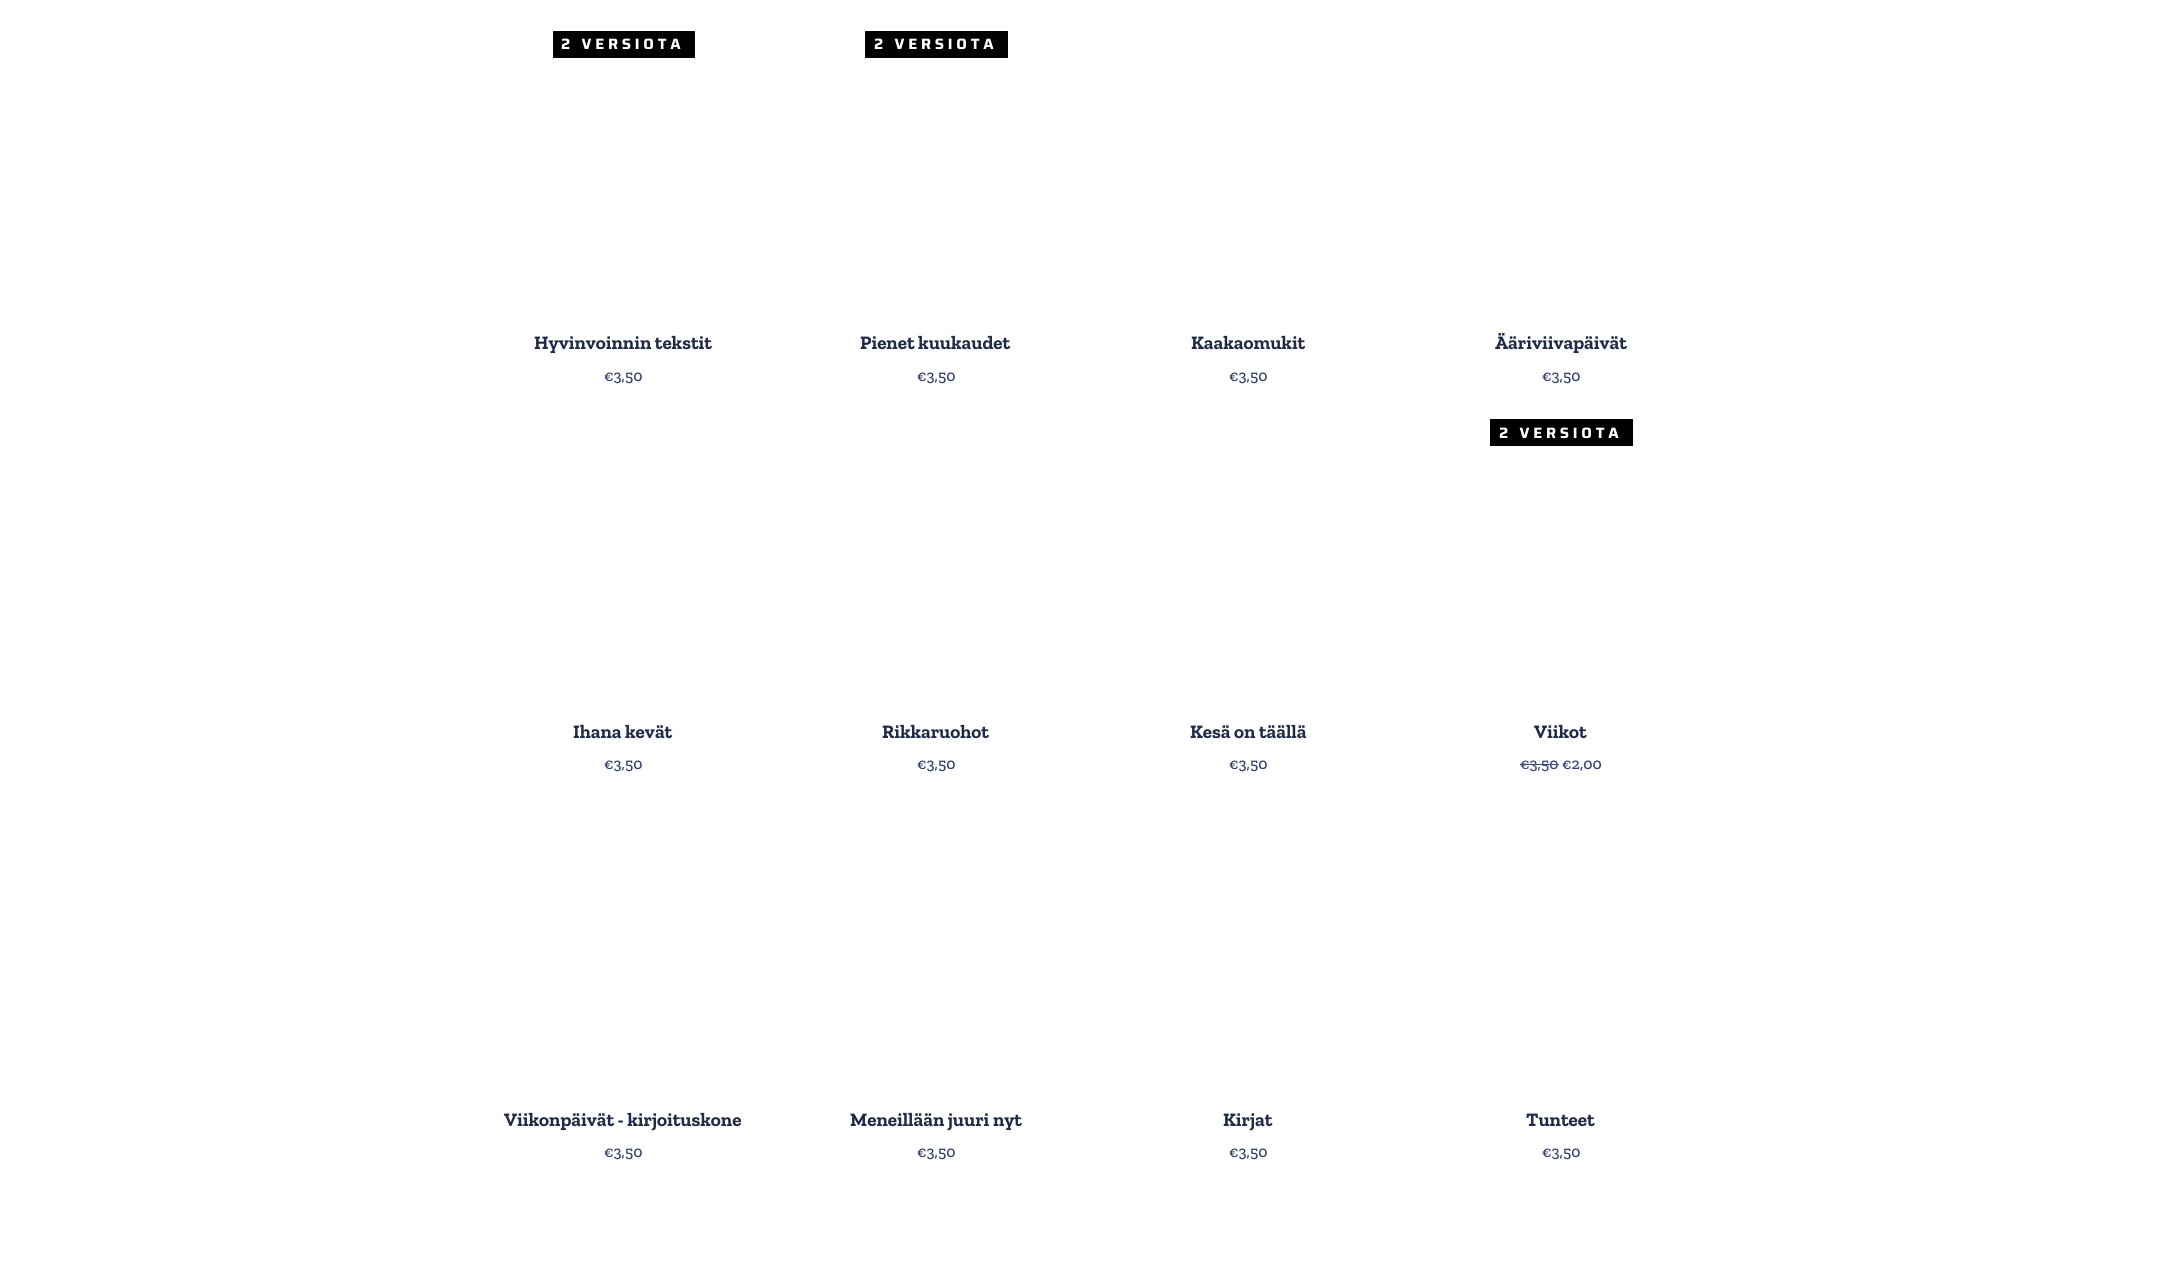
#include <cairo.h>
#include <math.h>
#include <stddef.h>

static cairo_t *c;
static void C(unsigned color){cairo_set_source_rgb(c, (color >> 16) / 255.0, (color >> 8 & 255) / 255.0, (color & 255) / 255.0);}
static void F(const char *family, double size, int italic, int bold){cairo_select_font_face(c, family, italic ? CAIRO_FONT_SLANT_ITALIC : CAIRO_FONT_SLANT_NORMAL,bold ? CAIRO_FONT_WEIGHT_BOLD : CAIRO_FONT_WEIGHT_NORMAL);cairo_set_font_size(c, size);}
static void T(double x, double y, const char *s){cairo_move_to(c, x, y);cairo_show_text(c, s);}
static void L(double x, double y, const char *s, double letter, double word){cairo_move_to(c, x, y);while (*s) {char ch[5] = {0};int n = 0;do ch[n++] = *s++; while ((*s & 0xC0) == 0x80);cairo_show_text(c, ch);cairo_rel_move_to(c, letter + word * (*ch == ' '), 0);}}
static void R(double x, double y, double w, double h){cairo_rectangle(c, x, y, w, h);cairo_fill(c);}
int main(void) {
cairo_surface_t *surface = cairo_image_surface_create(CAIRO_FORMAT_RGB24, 2183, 1287);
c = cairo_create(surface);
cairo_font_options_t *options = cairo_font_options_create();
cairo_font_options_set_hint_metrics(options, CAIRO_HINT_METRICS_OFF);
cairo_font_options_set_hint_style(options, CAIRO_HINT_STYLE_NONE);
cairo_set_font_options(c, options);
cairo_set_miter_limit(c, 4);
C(0xffffff);
cairo_paint(c);
C(0x000000);
R(553,31,142,27);
F("Saira",15,0,1);
C(0xffffff);
L(561,49,"2 VERSIOTA",3.75,0);
F("Zilla Slab",19.1,0,1);
C(0x212b47);
T(534,349,"Hyvinvoinnin tekstit");
F("Zilla Slab Medium",16,0,0);
C(0x31406a);
T(604,381,"€3,50");
C(0x000000);
R(865,31,143,27);
F("Saira",15,0,1);
C(0xffffff);
L(874,49,"2 VERSIOTA",3.75,0);
F("Zilla Slab",19.1,0,1);
C(0x212b47);
T(860,349,"Pienet kuukaudet");
F("Zilla Slab Medium",16,0,0);
C(0x31406a);
T(917,381,"€3,50");
F("Zilla Slab",19.1,0,1);
C(0x212b47);
T(1191,349,"Kaakaomukit");
F("Zilla Slab Medium",16,0,0);
C(0x31406a);
T(1229,381,"€3,50");
F("Zilla Slab",19.1,0,1);
C(0x212b47);
T(1495,349,"Ääriviivapäivät");
F("Zilla Slab Medium",16,0,0);
C(0x31406a);
T(1542,381,"€3,50");
F("Zilla Slab",19.1,0,1);
C(0x212b47);
T(573,738,"Ihana kevät");
F("Zilla Slab Medium",16,0,0);
C(0x31406a);
T(604,769,"€3,50");
F("Zilla Slab",19.1,0,1);
C(0x212b47);
T(882,738,"Rikkaruohot");
F("Zilla Slab Medium",16,0,0);
C(0x31406a);
T(917,769,"€3,50");
F("Zilla Slab",19.1,0,1);
C(0x212b47);
T(1190,738,"Kesä on täällä");
F("Zilla Slab Medium",16,0,0);
C(0x31406a);
T(1229,769,"€3,50");
C(0x000000);
R(1490,419,143,27);
F("Saira",15,0,1);
C(0xffffff);
L(1499,438,"2 VERSIOTA",3.75,0);
F("Zilla Slab",19.1,0,1);
C(0x212b47);
T(1534,738,"Viikot");
F("Zilla Slab Medium",16,0,0);
C(0x3b4a71);
T(1520,769,"€3,50");
R(1520,764,39,1);
C(0x31406a);
T(1562,769,"€2,00");
F("Zilla Slab",19.1,0,1);
C(0x212b47);
T(504,1126,"Viikonpäivät - kirjoituskone");
F("Zilla Slab Medium",16,0,0);
C(0x31406a);
T(604,1157,"€3,50");
F("Zilla Slab",19.1,0,1);
C(0x212b47);
T(850,1126,"Meneillään juuri nyt");
F("Zilla Slab Medium",16,0,0);
C(0x31406a);
T(917,1157,"€3,50");
F("Zilla Slab",19.1,0,1);
C(0x212b47);
T(1223,1126,"Kirjat");
F("Zilla Slab Medium",16,0,0);
C(0x31406a);
T(1229,1157,"€3,50");
F("Zilla Slab",19.1,0,1);
C(0x212b47);
T(1526,1126,"Tunteet");
F("Zilla Slab Medium",16,0,0);
C(0x31406a);
T(1542,1157,"€3,50");
cairo_surface_write_to_png(surface, "o.png");
cairo_font_options_destroy(options);
cairo_destroy(c);
cairo_surface_destroy(surface);
return 0;
}
